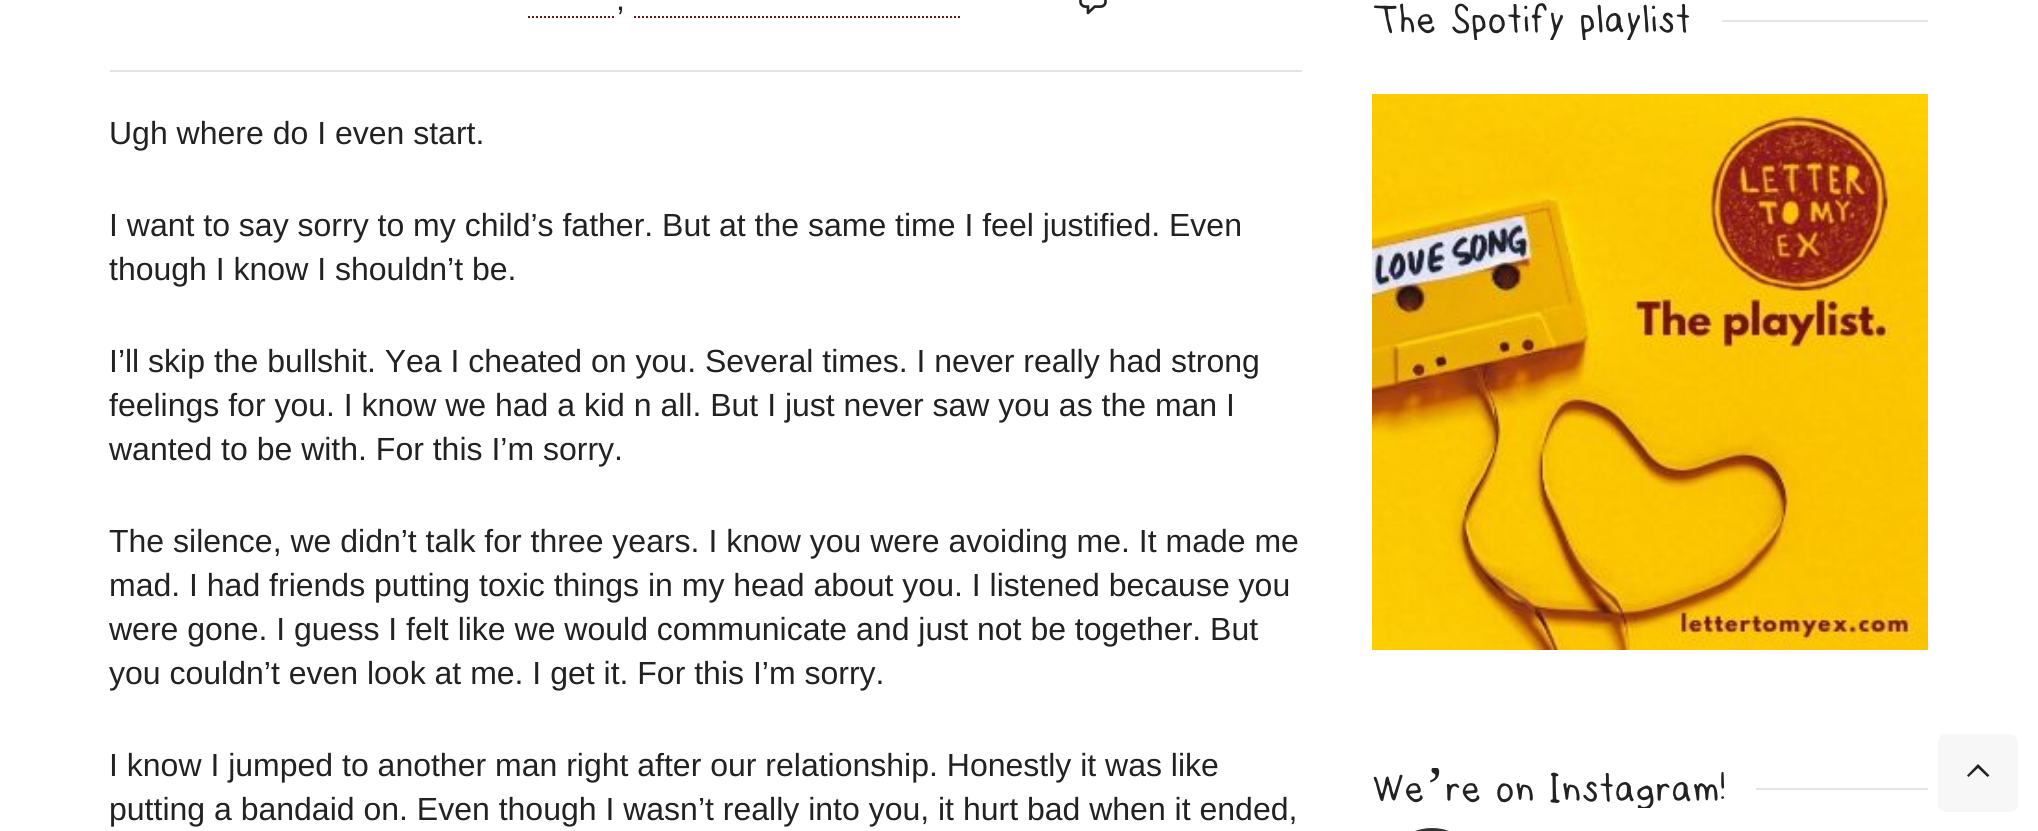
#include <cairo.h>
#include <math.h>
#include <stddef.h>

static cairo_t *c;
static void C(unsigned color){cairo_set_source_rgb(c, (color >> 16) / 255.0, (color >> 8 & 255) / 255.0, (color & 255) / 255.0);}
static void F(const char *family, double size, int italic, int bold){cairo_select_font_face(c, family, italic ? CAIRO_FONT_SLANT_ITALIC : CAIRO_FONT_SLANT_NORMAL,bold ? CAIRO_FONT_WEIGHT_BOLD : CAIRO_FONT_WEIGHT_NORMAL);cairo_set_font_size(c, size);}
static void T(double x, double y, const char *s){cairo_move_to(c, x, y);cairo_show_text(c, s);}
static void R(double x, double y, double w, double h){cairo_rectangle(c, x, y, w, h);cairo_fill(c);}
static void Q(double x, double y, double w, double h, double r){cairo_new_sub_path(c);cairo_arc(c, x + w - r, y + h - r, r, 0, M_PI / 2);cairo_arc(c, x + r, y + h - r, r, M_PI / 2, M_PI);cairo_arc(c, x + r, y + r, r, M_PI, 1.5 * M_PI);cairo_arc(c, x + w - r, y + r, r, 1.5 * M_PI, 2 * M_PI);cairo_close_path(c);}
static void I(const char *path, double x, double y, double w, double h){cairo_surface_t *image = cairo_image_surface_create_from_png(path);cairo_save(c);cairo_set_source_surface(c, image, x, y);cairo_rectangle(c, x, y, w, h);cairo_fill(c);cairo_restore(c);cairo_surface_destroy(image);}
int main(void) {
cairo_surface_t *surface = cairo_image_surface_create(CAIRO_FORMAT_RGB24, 2038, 831);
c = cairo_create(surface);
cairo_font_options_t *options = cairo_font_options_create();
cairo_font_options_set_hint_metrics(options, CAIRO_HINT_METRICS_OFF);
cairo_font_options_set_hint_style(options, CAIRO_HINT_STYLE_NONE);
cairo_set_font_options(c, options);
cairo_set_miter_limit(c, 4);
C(0xffffff);
cairo_paint(c);
C(0xe4e4e4);
R(110,70,1192,2);
F("Liberation Sans",32,0,0);
C(0x222222);
T(616,10,",");
cairo_new_path(c);
cairo_move_to(c,528,17);
cairo_line_to(c,616,17);
C(0x75111b);
cairo_set_dash(c,(double[]){2,2},2,0);
cairo_stroke(c);
cairo_new_path(c);
cairo_move_to(c,634,17);
cairo_line_to(c,962,17);
cairo_stroke(c);
I("1.png",1079,0,28,15);
C(0x222222);
T(109,144,"Ugh where do I even start.");
T(109,236,"I want to say sorry to my child’s father. But at the same time I feel justified. Even");
T(109,280,"though I know I shouldn’t be.");
T(109,372,"I’ll skip the bullshit. Yea I cheated on you. Several times. I never really had strong");
T(109,416,"feelings for you. I know we had a kid n all. But I just never saw you as the man I");
T(109,460,"wanted to be with. For this I’m sorry.");
T(109,552,"The silence, we didn’t talk for three years. I know you were avoiding me. It made me");
T(109,596,"mad. I had friends putting toxic things in my head about you. I listened because you");
T(109,640,"were gone. I guess I felt like we would communicate and just not be together. But");
T(109,684,"you couldn’t even look at me. I get it. For this I’m sorry.");
T(109,776,"I know I jumped to another man right after our relationship. Honestly it was like");
T(109,820,"putting a bandaid on. Even though I wasn’t really into you, it hurt bad when it ended,");
cairo_save(c);
cairo_rectangle(c,1372,0,556,40);
cairo_clip(c);
F("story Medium",60,0,0);
T(1372,38,"The Spotify playlist");
cairo_restore(c);
C(0xe4e4e4);
R(1722,20,206,2);
I("2.png",1372,94,556,556);
F("story Medium",60,0,0);
C(0x222222);
T(1372,807,"We");
cairo_save(c);
cairo_rectangle(c,1372,768,556,40);
cairo_clip(c);
F("Liberation Serif",60,0,0);
T(1425,807,"’");
F("story Medium",60,0,0);
T(1445,807,"re on Instagram!");
cairo_restore(c);
C(0xe4e4e4);
R(1756,788,172,2);
C(0x333333);
Q(1382,828,100,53,50);
cairo_fill(c);
C(0xf7f7f7);
Q(1938,734,80,78,8);
cairo_fill(c);
C(0x222222);
cairo_new_path(c);
cairo_move_to(c,1987.5,777);
cairo_line_to(c,1978,768);
cairo_line_to(c,1968.5,777);
cairo_line_to(c,1967,775.5);
cairo_line_to(c,1978,764);
cairo_line_to(c,1989.5,775.5);
cairo_close_path(c);
cairo_fill(c);
cairo_surface_write_to_png(surface, "o.png");
cairo_font_options_destroy(options);
cairo_destroy(c);
cairo_surface_destroy(surface);
return 0;
}
